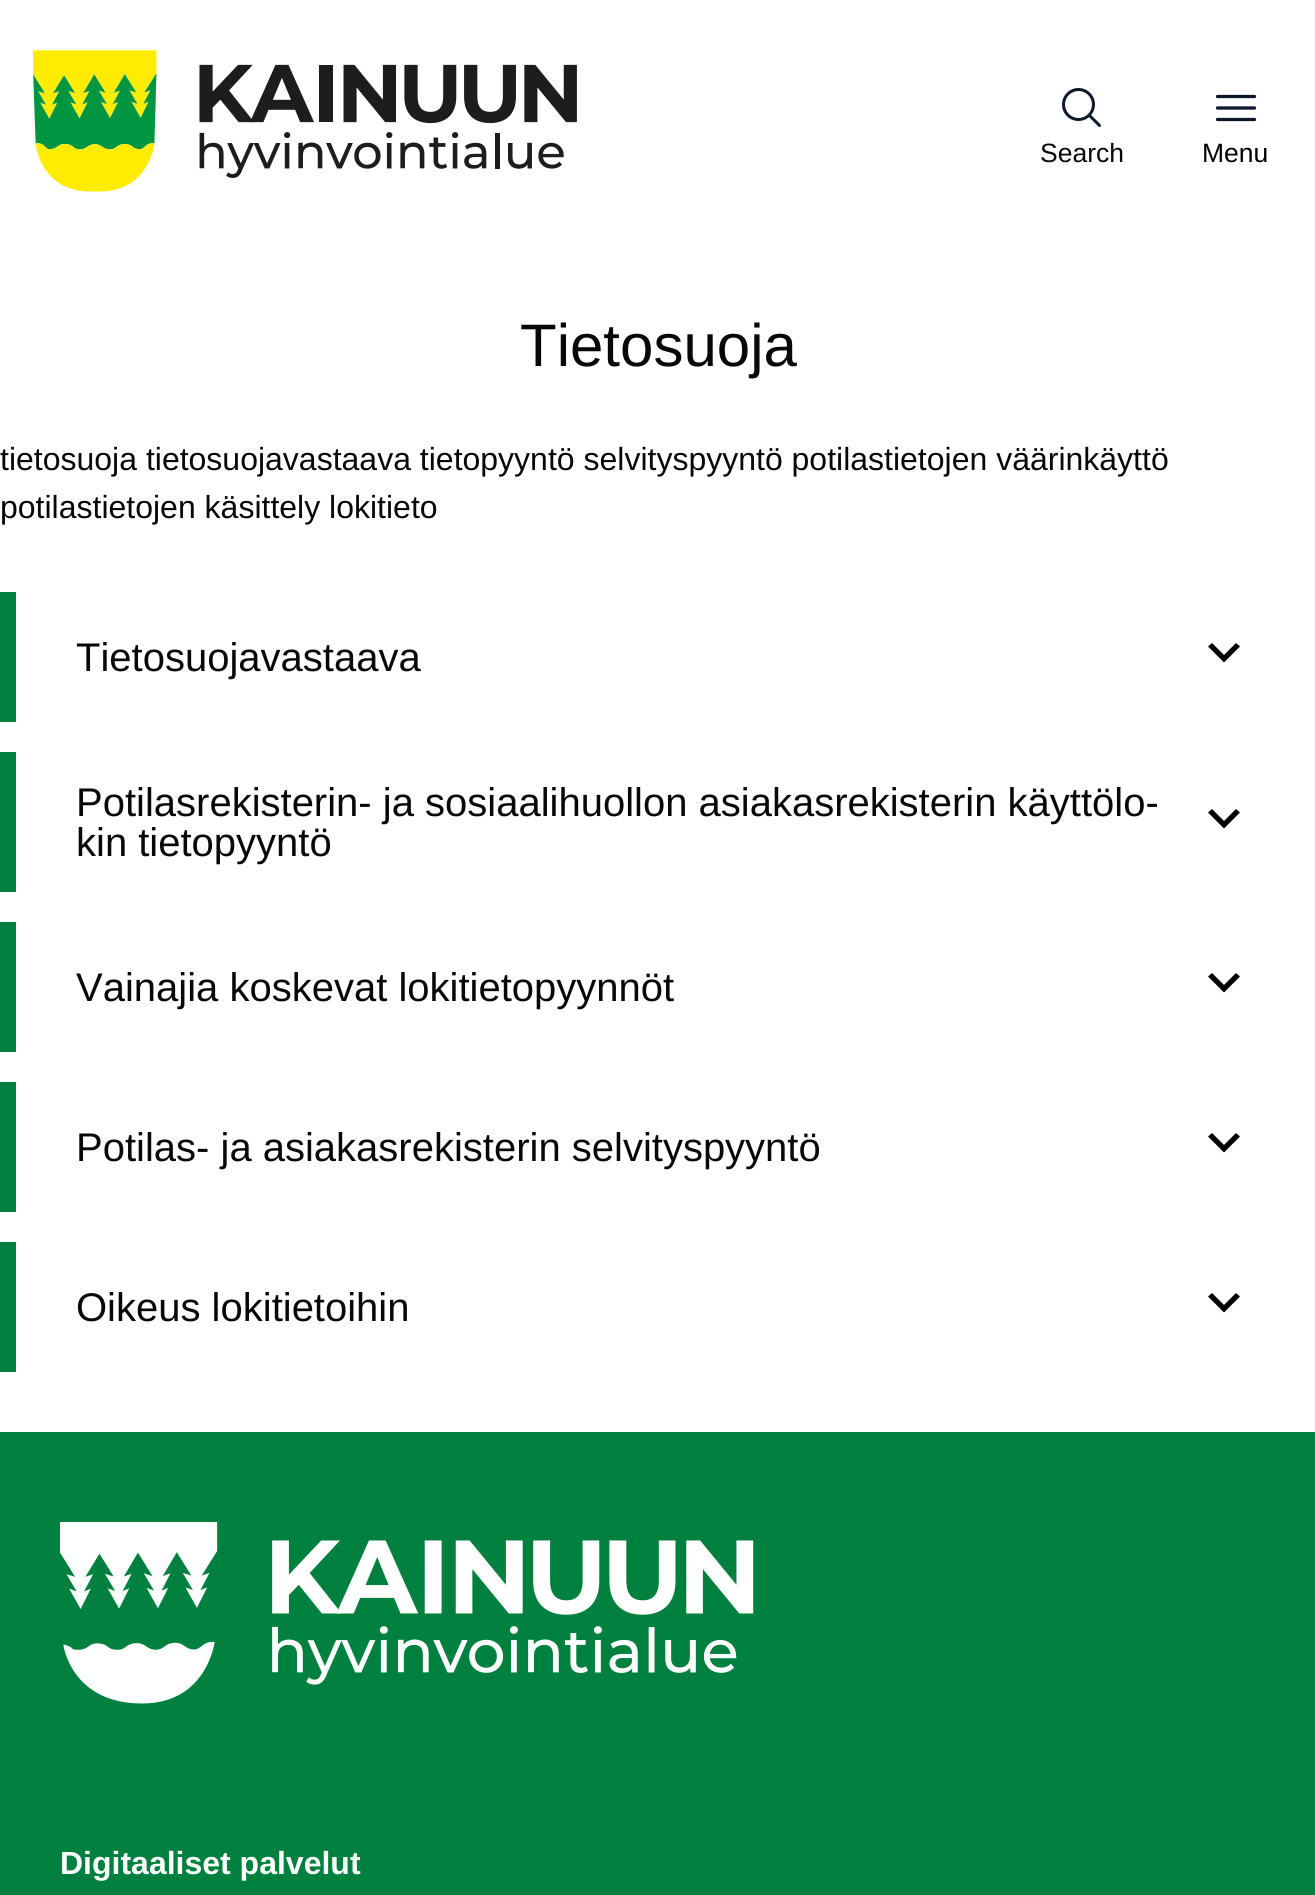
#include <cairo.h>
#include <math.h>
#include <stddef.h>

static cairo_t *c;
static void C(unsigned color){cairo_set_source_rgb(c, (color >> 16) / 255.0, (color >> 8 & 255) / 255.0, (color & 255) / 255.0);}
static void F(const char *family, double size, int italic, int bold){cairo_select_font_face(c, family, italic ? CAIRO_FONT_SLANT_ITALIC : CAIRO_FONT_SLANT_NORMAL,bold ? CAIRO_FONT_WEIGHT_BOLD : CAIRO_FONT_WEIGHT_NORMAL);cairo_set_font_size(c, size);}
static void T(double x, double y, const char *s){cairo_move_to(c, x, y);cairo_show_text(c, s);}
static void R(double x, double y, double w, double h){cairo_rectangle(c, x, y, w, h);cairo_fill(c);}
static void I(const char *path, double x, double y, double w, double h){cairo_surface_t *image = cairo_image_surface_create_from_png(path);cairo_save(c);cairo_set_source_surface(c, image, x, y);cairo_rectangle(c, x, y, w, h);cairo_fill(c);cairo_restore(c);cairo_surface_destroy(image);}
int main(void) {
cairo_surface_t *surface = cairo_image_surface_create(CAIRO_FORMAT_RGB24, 1315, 1895);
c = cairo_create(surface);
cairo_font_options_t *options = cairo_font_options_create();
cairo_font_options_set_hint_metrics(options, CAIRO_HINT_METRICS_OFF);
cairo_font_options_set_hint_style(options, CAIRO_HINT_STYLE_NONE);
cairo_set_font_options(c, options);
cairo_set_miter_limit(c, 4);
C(0xffffff);
cairo_paint(c);
I("1.png",33,50,544,142);
I("2.png",1062,88,39,39);
F("Liberation Sans",26.5,0,0);
C(0x080808);
T(1040,162,"Search");
cairo_save(c);
cairo_rectangle(c,1216,88,40,40);
cairo_clip(c);
cairo_new_path(c);
cairo_move_to(c,1217.5,96.5);
cairo_line_to(c,1254.5,96.5);
cairo_move_to(c,1217.5,108);
cairo_line_to(c,1254.5,108);
cairo_move_to(c,1217.5,119.5);
cairo_line_to(c,1254.5,119.5);
C(0x0f172a);
cairo_set_line_width(c,3.3);
cairo_set_line_cap(c,CAIRO_LINE_CAP_ROUND);
cairo_set_line_join(c,CAIRO_LINE_JOIN_ROUND);
cairo_stroke(c);
cairo_restore(c);
C(0x000000);
T(1202,162,"Menu");
F("Liberation Sans",60,0,0);
C(0x080808);
T(520,366,"Tietosuoja");
F("Liberation Sans",32,0,0);
T(0,470,"tietosuoja tietosuojavastaava tietopyyntö selvityspyyntö potilastietojen väärinkäyttö");
T(0,518,"potilastietojen käsittely lokitieto");
C(0x00803e);
R(0,592,16,130);
F("Liberation Sans",40,0,0);
C(0x080808);
T(76,671,"Tietosuojavastaava");
C(0x000000);
cairo_new_path(c);
cairo_move_to(c,1212,643);
cairo_line_to(c,1224,655);
cairo_line_to(c,1236,643);
cairo_line_to(c,1240,646.5);
cairo_line_to(c,1224,662.5);
cairo_line_to(c,1208,646.5);
cairo_close_path(c);
cairo_fill(c);
C(0x00803e);
R(0,752,16,140);
C(0x080808);
T(76,816,"Potilasrekisterin- ja sosiaalihuollon asiakasrekisterin käyttölo-");
C(0x000000);
cairo_new_path(c);
cairo_move_to(c,1212,809);
cairo_line_to(c,1224,821);
cairo_line_to(c,1236,809);
cairo_line_to(c,1240,812.5);
cairo_line_to(c,1224,828.5);
cairo_line_to(c,1208,812.5);
cairo_close_path(c);
cairo_fill(c);
C(0x080808);
T(76,856,"kin tietopyyntö");
C(0x00803e);
R(0,922,16,130);
C(0x080808);
T(76,1001,"Vainajia koskevat lokitietopyynnöt");
C(0x000000);
cairo_new_path(c);
cairo_move_to(c,1212,973);
cairo_line_to(c,1224,985);
cairo_line_to(c,1236,973);
cairo_line_to(c,1240,976.5);
cairo_line_to(c,1224,992.5);
cairo_line_to(c,1208,976.5);
cairo_close_path(c);
cairo_fill(c);
C(0x00803e);
R(0,1082,16,130);
C(0x080808);
T(76,1161,"Potilas- ja asiakasrekisterin selvityspyyntö");
C(0x000000);
cairo_new_path(c);
cairo_move_to(c,1212,1133);
cairo_line_to(c,1224,1145);
cairo_line_to(c,1236,1133);
cairo_line_to(c,1240,1136.5);
cairo_line_to(c,1224,1152.5);
cairo_line_to(c,1208,1136.5);
cairo_close_path(c);
cairo_fill(c);
C(0x00803e);
R(0,1242,16,130);
C(0x080808);
T(76,1321,"Oikeus lokitietoihin");
C(0x000000);
cairo_new_path(c);
cairo_move_to(c,1212,1293);
cairo_line_to(c,1224,1305);
cairo_line_to(c,1236,1293);
cairo_line_to(c,1240,1296.5);
cairo_line_to(c,1224,1312.5);
cairo_line_to(c,1208,1296.5);
cairo_close_path(c);
cairo_fill(c);
C(0x00803e);
R(0,1432,1315,463);
I("3.png",60,1522,694,182);
F("Liberation Sans",32,0,1);
C(0xffffff);
T(60,1874,"Digitaaliset palvelut");
cairo_surface_write_to_png(surface, "o.png");
cairo_font_options_destroy(options);
cairo_destroy(c);
cairo_surface_destroy(surface);
return 0;
}
